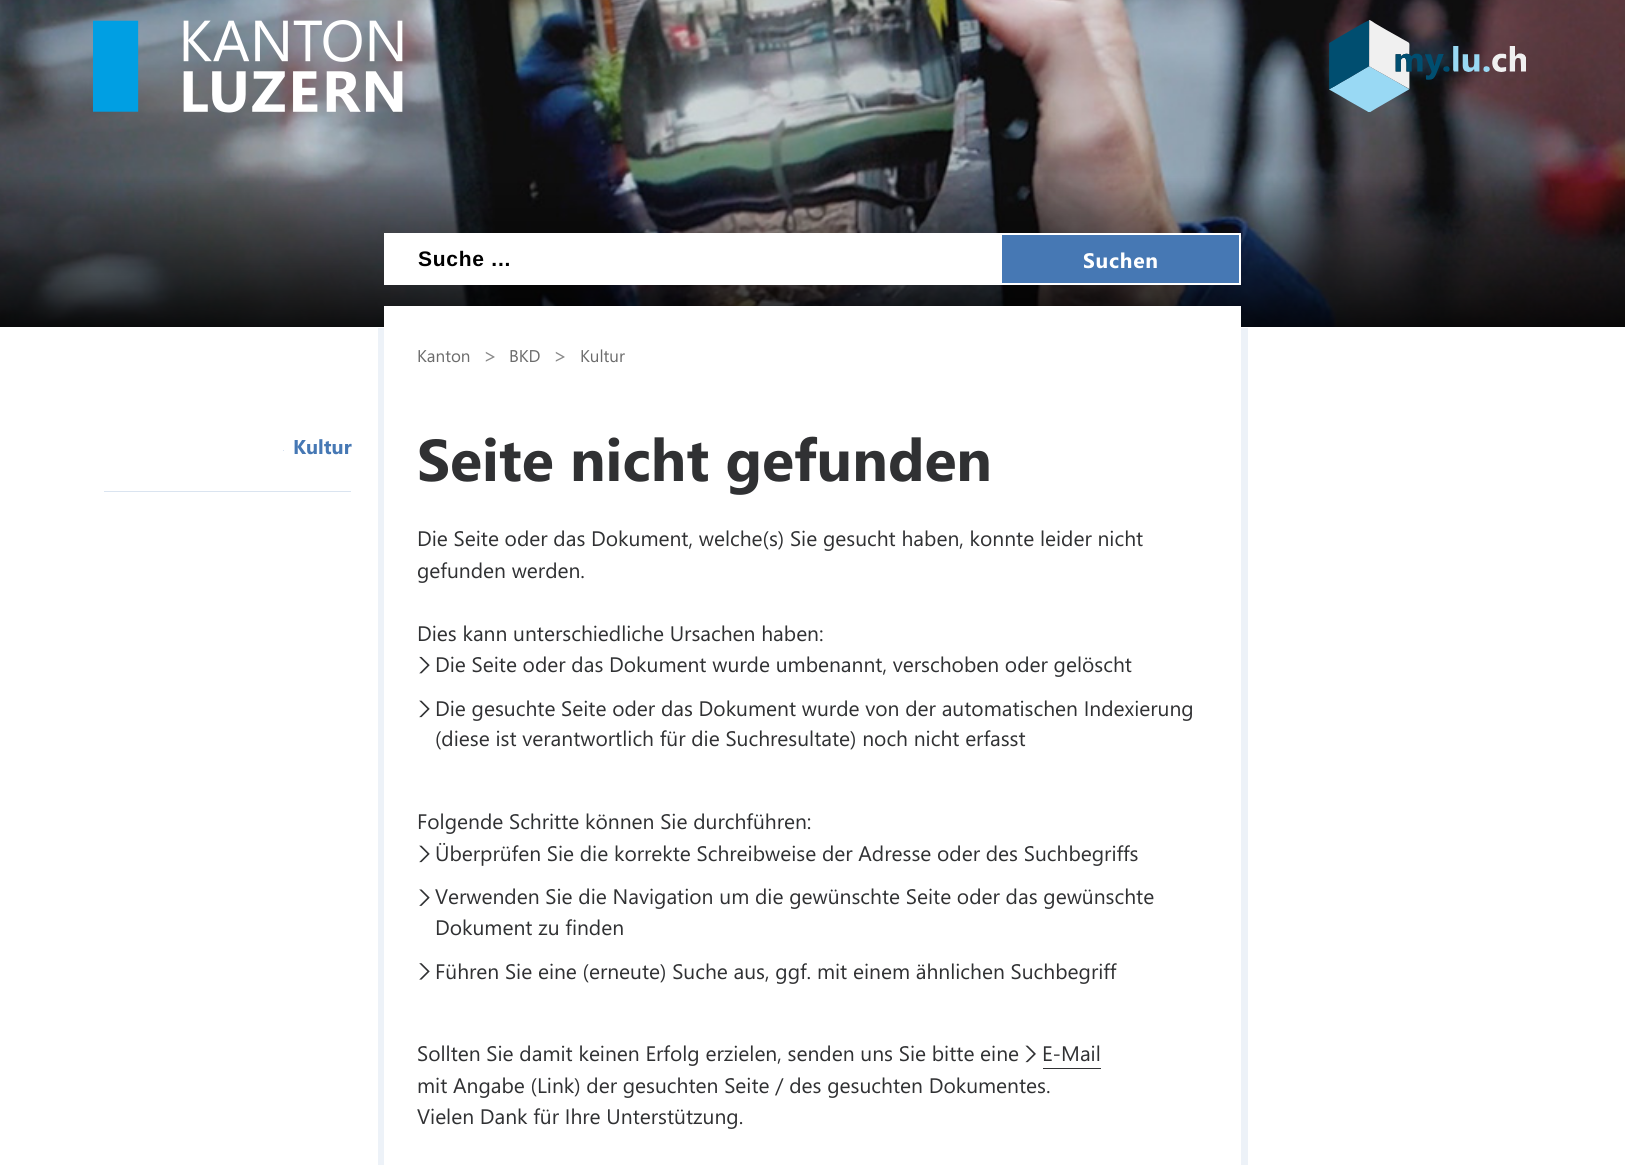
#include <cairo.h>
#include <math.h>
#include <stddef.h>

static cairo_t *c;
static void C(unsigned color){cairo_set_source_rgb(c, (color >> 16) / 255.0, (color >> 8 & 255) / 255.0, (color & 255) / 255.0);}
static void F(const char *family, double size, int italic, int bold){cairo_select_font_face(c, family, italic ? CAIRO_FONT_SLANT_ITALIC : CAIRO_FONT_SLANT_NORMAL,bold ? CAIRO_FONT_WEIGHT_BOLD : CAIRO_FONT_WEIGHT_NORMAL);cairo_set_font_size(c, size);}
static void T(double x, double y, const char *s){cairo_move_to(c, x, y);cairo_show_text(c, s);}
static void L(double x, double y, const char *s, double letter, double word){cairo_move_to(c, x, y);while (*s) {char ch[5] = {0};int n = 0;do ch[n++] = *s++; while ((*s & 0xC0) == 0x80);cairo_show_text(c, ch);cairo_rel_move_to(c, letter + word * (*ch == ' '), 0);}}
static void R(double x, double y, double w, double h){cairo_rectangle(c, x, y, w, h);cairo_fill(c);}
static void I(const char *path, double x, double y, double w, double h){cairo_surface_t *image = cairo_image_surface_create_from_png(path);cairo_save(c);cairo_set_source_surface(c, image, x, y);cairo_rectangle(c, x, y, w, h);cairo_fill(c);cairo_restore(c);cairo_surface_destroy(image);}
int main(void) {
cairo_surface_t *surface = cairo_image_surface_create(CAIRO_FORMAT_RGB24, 1625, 1165);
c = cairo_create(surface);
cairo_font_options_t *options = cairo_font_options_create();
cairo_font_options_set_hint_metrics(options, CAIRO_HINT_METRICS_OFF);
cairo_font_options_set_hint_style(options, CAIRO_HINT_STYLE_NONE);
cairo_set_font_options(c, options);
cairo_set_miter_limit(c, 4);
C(0xffffff);
cairo_paint(c);
I("1.png",0,0,1625,327);
I("2.png",93,20,310,93);
I("3.png",1329,20,197,92);
C(0xffffff);
R(384,233,857,52);
F("Liberation Sans",21,0,1);
C(0x000000);
L(418,266,"Suche ...",.75,0);
C(0x4678b4);
R(1002,235,237,48);
F("Segoe UI",21,0,1);
C(0xffffff);
L(1083,268,"Suchen",.75,0);
C(0xdae4f0);
R(104,491,247,1);
C(0x4678b4);
cairo_new_path(c);
cairo_move_to(c,283.5,451);
cairo_line_to(c,284,450.5);
cairo_line_to(c,283,450.5);
cairo_close_path(c);
cairo_fill(c);
F("Segoe UI",20,0,1);
T(293,454,"Kultur");
C(0xffffff);
R(384,306,857,21);
C(0xedf2f8);
R(378,328,6,837);
F("Segoe UI",17,0,0);
C(0x6b6b6b);
T(417,362,"Kanton");
F("Segoe UI",21,0,0);
C(0x898989);
T(483,363,">");
F("Segoe UI",17,0,0);
C(0x6b6b6b);
T(509,362,"BKD");
F("Segoe UI",21,0,0);
C(0x898989);
T(553,363,">");
F("Segoe UI",17,0,0);
C(0x6b6b6b);
T(580,362,"Kultur");
C(0xedf2f8);
R(1241,328,7,837);
F("Segoe UI",59,0,1);
C(0x303133);
T(417,481,"Seite nicht gefunden");
F("Segoe UI",21,0,0);
T(417,546,"Die Seite oder das Dokument, welche(s) Sie gesucht haben, konnte leider nicht");
T(417,578,"gefunden werden.");
T(417,641,"Dies kann unterschiedliche Ursachen haben:");
I("4.png",419,656,11,18);
T(435,672,"Die Seite oder das Dokument wurde umbenannt, verschoben oder gelöscht");
I("5.png",419,700,11,18);
T(435,716,"Die gesuchte Seite oder das Dokument wurde von der automatischen Indexierung");
T(435,746,"(diese ist verantwortlich für die Suchresultate) noch nicht erfasst");
T(417,829,"Folgende Schritte können Sie durchführen:");
I("5.png",419,845,11,18);
T(435,861,"Überprüfen Sie die korrekte Schreibweise der Adresse oder des Suchbegriffs");
I("6.png",419,889,11,17);
T(435,904,"Verwenden Sie die Navigation um die gewünschte Seite oder das gewünschte");
T(435,935,"Dokument zu finden");
I("7.png",419,963,11,17);
T(435,979,"Führen Sie eine (erneute) Suche aus, ggf. mit einem ähnlichen Suchbegriff");
T(417,1061,"Sollten Sie damit keinen Erfolg erzielen, senden uns Sie bitte eine");
I("8.png",1025,1045,11,18);
T(1042,1061,"E-Mail");
R(1043,1068,58,1);
T(417,1093,"mit Angabe (Link) der gesuchten Seite / des gesuchten Dokumentes.");
T(417,1124,"Vielen Dank für Ihre Unterstützung.");
cairo_surface_write_to_png(surface, "o.png");
cairo_font_options_destroy(options);
cairo_destroy(c);
cairo_surface_destroy(surface);
return 0;
}
